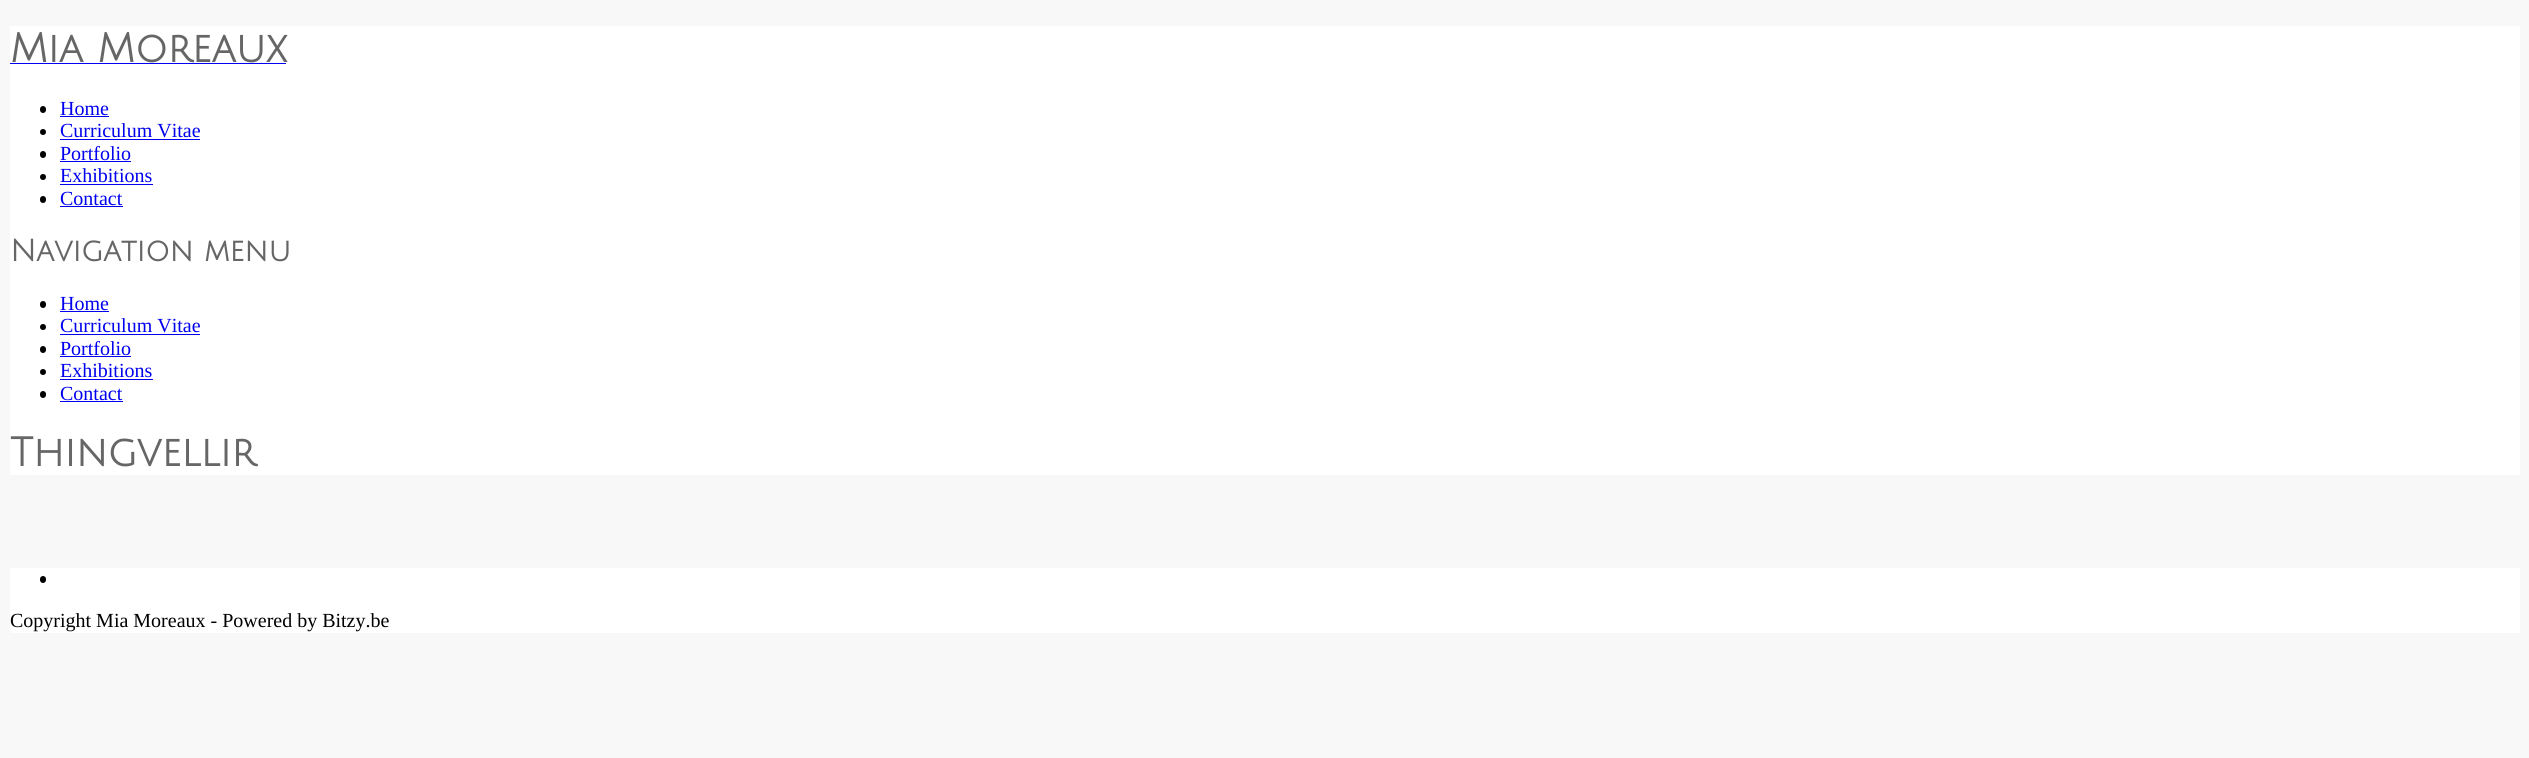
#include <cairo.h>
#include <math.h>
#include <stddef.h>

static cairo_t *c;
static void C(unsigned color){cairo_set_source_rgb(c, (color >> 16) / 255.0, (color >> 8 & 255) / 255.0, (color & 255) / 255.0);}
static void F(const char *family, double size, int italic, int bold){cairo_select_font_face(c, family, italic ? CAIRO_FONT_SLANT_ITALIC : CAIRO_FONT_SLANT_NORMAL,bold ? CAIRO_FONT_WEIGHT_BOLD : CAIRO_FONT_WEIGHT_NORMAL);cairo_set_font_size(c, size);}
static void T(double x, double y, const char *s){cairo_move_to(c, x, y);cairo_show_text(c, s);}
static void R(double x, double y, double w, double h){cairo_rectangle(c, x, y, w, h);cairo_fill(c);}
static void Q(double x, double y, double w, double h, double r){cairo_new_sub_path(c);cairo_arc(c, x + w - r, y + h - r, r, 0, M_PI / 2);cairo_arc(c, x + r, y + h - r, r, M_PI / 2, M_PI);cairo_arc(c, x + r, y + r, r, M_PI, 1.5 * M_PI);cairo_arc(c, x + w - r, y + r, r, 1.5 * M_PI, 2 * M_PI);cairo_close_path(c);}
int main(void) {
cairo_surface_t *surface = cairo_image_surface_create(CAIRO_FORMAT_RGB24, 2529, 758);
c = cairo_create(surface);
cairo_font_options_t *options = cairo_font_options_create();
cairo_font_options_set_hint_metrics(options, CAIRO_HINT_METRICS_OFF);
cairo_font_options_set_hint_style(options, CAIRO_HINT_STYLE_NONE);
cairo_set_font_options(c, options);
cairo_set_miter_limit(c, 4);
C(0xf8f8f8);
cairo_paint(c);
C(0xffffff);
R(10,26,2510,449);
F("Julius Sans One",40,0,1);
C(0x666666);
T(10,62,"Mia Moreaux");
C(0x0000ee);
R(10,63,276,1);
C(0x000000);
Q(40,106,6,7,3);
cairo_fill(c);
F("Liberation Serif",20,0,0);
C(0x0000ee);
T(60,115,"Home");
R(60,116,49,1);
C(0x000000);
cairo_new_path(c);
cairo_arc(c,43,132,3,0,2 * M_PI);
cairo_fill(c);
C(0x0000ee);
T(60,137,"Curriculum Vitae");
R(60,139,140,1);
C(0x000000);
Q(40,151,6,7,3);
cairo_fill(c);
C(0x0000ee);
T(60,160,"Portfolio");
R(60,161,71,1);
C(0x000000);
cairo_new_path(c);
cairo_arc(c,43,177,3,0,2 * M_PI);
cairo_fill(c);
C(0x0000ee);
T(60,182,"Exhibitions");
R(60,184,93,1);
C(0x000000);
Q(40,196,6,7,3);
cairo_fill(c);
C(0x0000ee);
T(60,205,"Contact");
R(60,206,63,1);
F("Julius Sans One",30,0,1);
C(0x666666);
T(10,261,"Navigation menu");
C(0x000000);
Q(40,301,6,7,3);
cairo_fill(c);
F("Liberation Serif",20,0,0);
C(0x0000ee);
T(60,310,"Home");
R(60,311,49,1);
C(0x000000);
cairo_new_path(c);
cairo_arc(c,43,327,3,0,2 * M_PI);
cairo_fill(c);
C(0x0000ee);
T(60,332,"Curriculum Vitae");
R(60,334,140,1);
C(0x000000);
Q(40,346,6,7,3);
cairo_fill(c);
C(0x0000ee);
T(60,355,"Portfolio");
R(60,356,71,1);
C(0x000000);
cairo_new_path(c);
cairo_arc(c,43,372,3,0,2 * M_PI);
cairo_fill(c);
C(0x0000ee);
T(60,377,"Exhibitions");
R(60,379,93,1);
C(0x000000);
Q(40,391,6,7,3);
cairo_fill(c);
C(0x0000ee);
T(60,400,"Contact");
R(60,401,63,1);
F("Julius Sans One",40,0,1);
C(0x666666);
T(10,466,"Thingvellir");
C(0xffffff);
R(10,568,2510,65);
C(0x000000);
Q(40,576,6,7,3);
cairo_fill(c);
F("Liberation Serif",20,0,0);
T(10,627,"Copyright Mia Moreaux - Powered by Bitzy.be");
cairo_surface_write_to_png(surface, "o.png");
cairo_font_options_destroy(options);
cairo_destroy(c);
cairo_surface_destroy(surface);
return 0;
}
